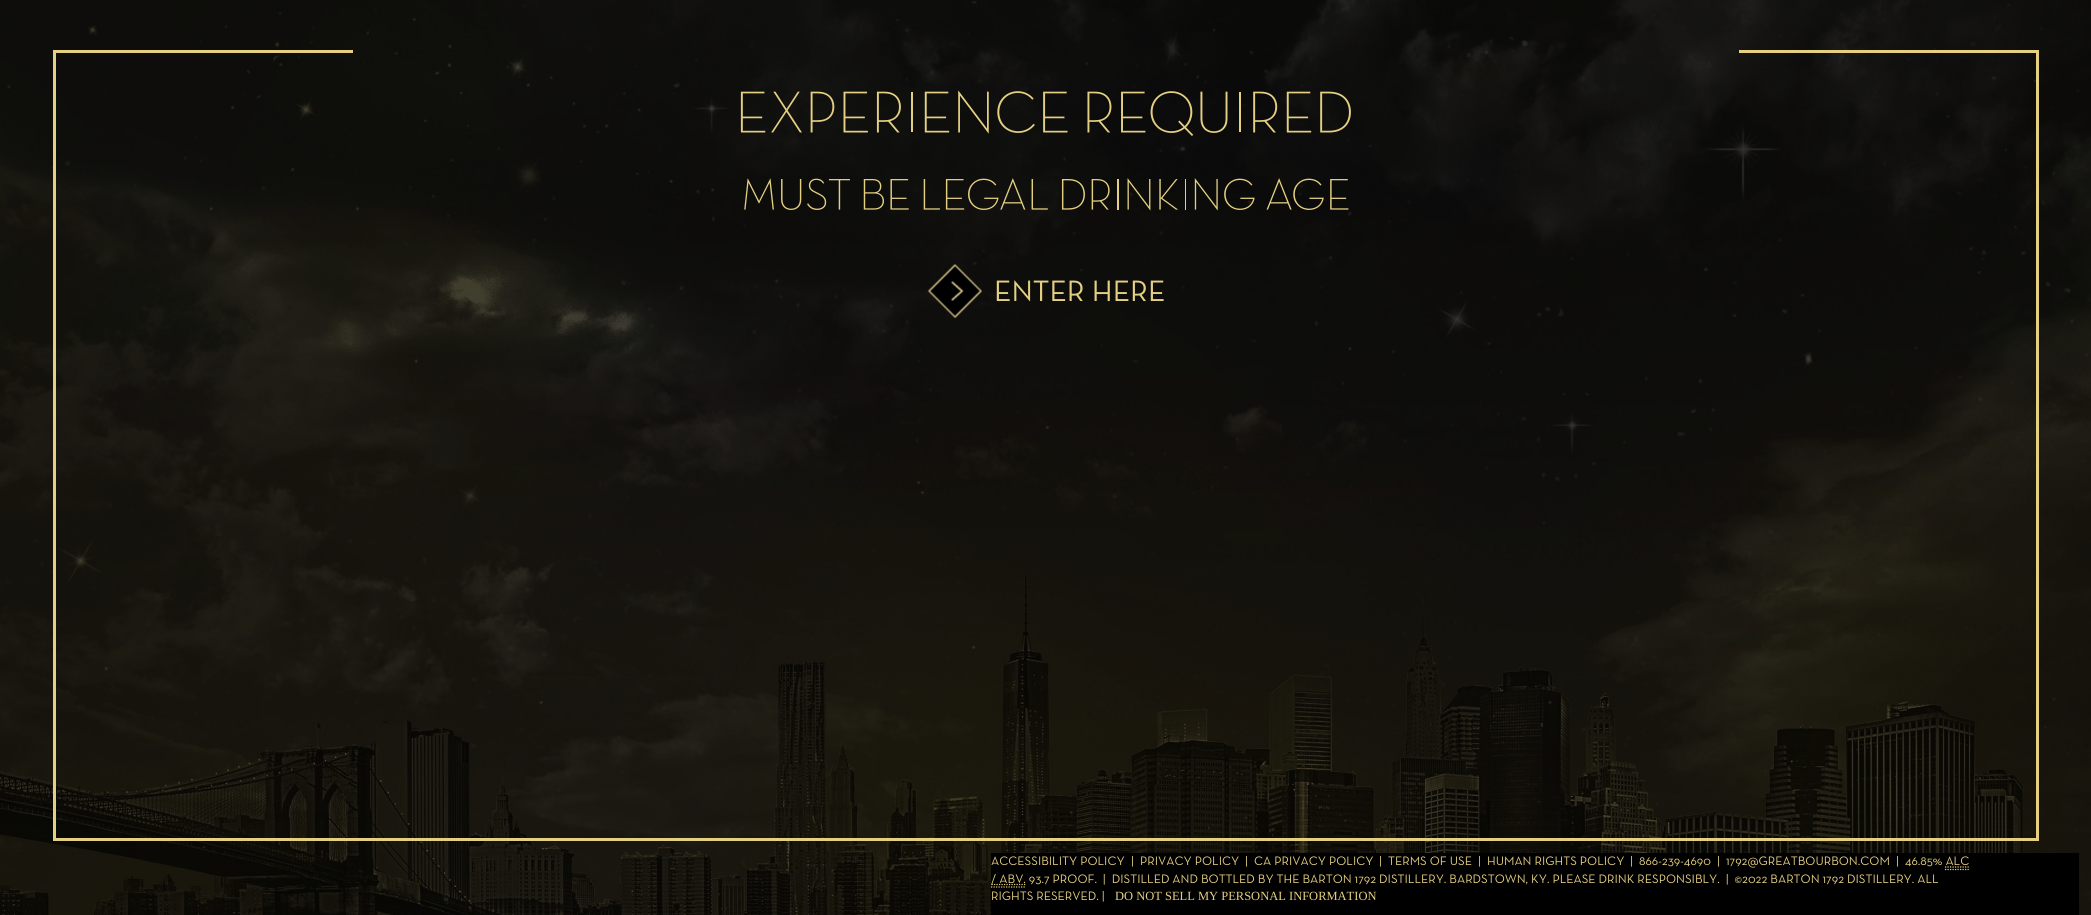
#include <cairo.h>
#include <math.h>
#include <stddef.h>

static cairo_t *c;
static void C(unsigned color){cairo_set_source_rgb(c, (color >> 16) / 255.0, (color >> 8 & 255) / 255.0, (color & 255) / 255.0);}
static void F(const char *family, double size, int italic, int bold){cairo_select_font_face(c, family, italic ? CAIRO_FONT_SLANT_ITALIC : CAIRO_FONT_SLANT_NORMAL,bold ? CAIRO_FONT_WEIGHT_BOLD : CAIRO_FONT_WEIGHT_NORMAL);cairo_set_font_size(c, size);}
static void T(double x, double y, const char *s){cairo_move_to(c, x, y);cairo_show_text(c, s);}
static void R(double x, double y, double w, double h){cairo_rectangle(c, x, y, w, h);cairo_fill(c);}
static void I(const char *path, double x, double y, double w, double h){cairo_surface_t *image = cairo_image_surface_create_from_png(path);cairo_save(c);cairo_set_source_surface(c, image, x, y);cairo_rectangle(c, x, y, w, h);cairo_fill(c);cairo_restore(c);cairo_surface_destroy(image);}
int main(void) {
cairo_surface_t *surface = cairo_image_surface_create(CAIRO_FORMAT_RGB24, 2091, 915);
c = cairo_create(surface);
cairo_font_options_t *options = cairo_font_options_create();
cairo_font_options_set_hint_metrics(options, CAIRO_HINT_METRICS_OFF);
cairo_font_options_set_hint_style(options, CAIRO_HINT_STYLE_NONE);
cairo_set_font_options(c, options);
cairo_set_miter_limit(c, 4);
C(0x000000);
cairo_paint(c);
I("1.png",230,105,5,5);
I("2.png",669,179,5,5);
I("3.png",710,187,5,5);
I("4.png",209,206,5,5);
I("5.png",355,206,5,5);
I("10.png",1347,346,5,5);
I("2.png",414,359,5,5);
I("1.png",1045,425,5,5);
I("11.png",916,480,5,5);
I("1.png",920,490,5,5);
I("11.png",971,645,5,5);
I("4.png",104,666,5,5);
I("12.png",539,700,5,5);
I("13.png",1547,700,5,5);
I("12.png",1069,810,5,5);
I("6.png",0,0,2091,915);
C(0xe5d082);
R(2036,50,3,790);
R(53,838,1986,3);
R(53,50,3,790);
R(55,50,298,3);
R(1739,50,297,3);
I("7.png",740,90,611,46);
I("8.png",744,178,605,33);
I("9.png",927,264,55,55);
F("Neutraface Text",30,0,0);
T(994,301,"ENTER HERE");
C(0x000000);
R(991,853,1088,62);
F("Neutraface Text",12.5,0,0);
C(0xe5d082);
T(991,865,"ACCESSIBILITY POLICY");
T(1131,865,"|");
T(1140,865,"PRIVACY POLICY");
T(1245,865,"|");
T(1254,865,"CA PRIVACY POLICY");
T(1379,865,"|");
T(1388,865,"TERMS OF USE");
T(1478,865,"|");
T(1487,865,"HUMAN RIGHTS POLICY");
T(1630,865,"|");
T(1639,865,"866-239-4690");
T(1717,865,"|");
T(1726,865,"1792@GREATBOURBON.COM");
T(1896,865,"|  46.85% ALC");
cairo_new_path(c);
cairo_move_to(c,991.5,884.5);
cairo_line_to(c,1026,884.5);
cairo_set_line_width(c,1.2);
cairo_set_dash(c,(double[]){1.25,1.25},2,0);
cairo_stroke(c);
T(991,883,"/ ABV. 93.7 PROOF.  |  DISTILLED AND BOTTLED BY THE BARTON 1792 DISTILLERY. BARDSTOWN, KY. PLEASE DRINK RESPONSIBLY.  |  ©2022 BARTON 1792 DISTILLERY. ALL");
cairo_new_path(c);
cairo_move_to(c,1945,869.5);
cairo_line_to(c,1969,869.5);
cairo_stroke(c);
cairo_new_path(c);
cairo_move_to(c,991,887);
cairo_line_to(c,1026,887);
cairo_stroke(c);
cairo_new_path(c);
cairo_move_to(c,1945,867);
cairo_line_to(c,1969,867);
cairo_stroke(c);
T(991,900,"RIGHTS RESERVED. |");
F("Liberation Serif",12.5,0,0);
T(1115,900,"DO NOT SELL MY PERSONAL INFORMATION");
cairo_surface_write_to_png(surface, "o.png");
cairo_font_options_destroy(options);
cairo_destroy(c);
cairo_surface_destroy(surface);
return 0;
}
